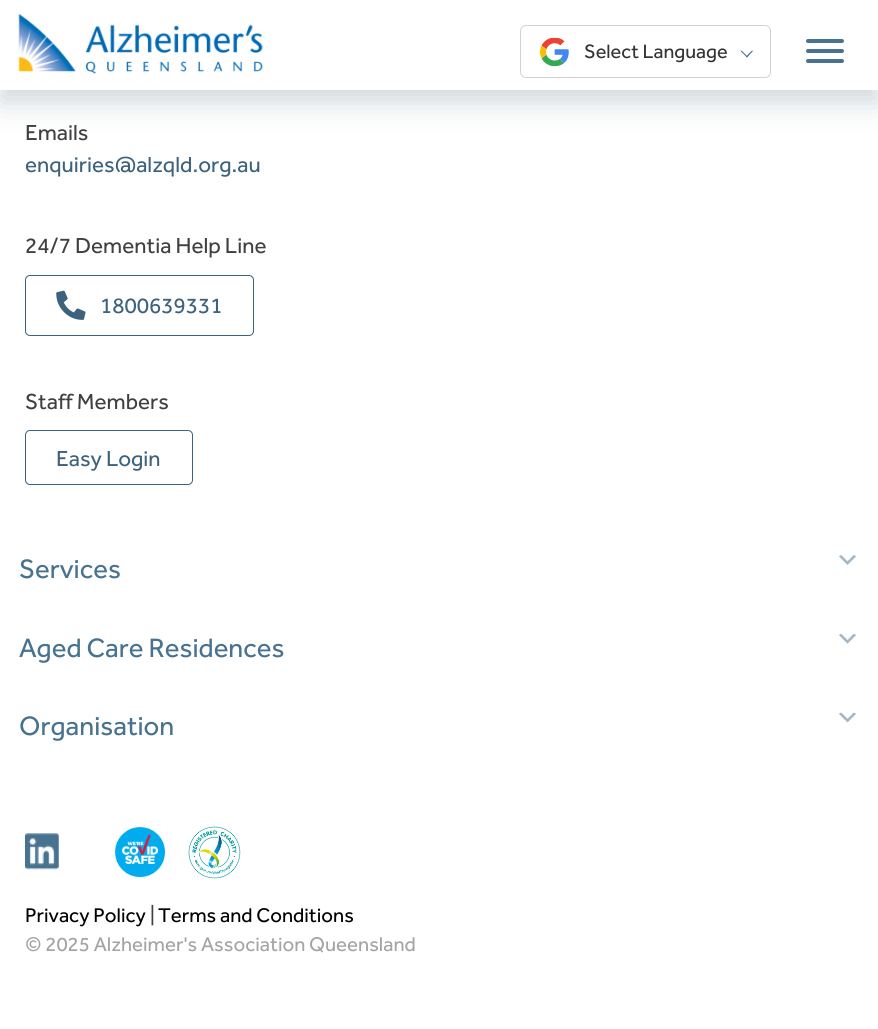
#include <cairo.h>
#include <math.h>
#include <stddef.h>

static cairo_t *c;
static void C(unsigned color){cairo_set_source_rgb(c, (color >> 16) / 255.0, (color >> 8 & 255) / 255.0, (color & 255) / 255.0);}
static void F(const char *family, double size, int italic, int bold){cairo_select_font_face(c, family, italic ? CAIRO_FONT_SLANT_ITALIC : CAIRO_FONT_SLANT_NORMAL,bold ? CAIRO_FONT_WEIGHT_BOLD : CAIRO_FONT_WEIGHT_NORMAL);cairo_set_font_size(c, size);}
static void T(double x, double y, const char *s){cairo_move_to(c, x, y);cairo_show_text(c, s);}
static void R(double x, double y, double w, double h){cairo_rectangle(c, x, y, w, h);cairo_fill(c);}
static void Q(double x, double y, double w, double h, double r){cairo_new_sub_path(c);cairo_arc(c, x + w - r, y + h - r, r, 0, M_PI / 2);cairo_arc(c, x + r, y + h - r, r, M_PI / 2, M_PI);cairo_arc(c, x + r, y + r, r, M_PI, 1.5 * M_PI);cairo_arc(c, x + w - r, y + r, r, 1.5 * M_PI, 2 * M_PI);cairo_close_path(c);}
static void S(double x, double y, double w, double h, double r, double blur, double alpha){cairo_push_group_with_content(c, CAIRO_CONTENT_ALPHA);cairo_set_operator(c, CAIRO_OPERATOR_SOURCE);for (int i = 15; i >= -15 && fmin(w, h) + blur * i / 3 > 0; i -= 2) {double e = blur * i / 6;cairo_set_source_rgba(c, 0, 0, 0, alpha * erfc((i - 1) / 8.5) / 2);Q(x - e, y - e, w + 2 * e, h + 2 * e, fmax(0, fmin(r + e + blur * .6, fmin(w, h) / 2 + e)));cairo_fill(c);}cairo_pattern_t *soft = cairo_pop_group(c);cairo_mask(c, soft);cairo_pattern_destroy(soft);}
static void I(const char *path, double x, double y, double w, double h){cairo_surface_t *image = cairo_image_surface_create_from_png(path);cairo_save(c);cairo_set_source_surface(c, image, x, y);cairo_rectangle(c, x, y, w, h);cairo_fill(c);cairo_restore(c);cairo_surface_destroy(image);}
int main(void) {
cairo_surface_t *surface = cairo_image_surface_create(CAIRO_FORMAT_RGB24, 878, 1029);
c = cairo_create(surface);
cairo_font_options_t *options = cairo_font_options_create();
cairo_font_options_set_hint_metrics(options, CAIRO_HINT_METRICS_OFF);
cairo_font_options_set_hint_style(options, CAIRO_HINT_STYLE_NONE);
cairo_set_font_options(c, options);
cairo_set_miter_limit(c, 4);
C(0xffffff);
cairo_paint(c);
C(0x233e51);
S(0,13,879,90,0,14,.2);
C(0xffffff);
R(0,0,878,90);
I("1.png",18,13,245,61);
Q(520.5,25.5,250,52,5.5);
C(0xd2d2d2);
cairo_set_line_width(c,1);
cairo_stroke(c);
I("2.png",540,38,29,28);
F("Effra",20,0,0);
C(0x333333);
T(584,58,"Select Language");
C(0x477290);
cairo_new_path(c);
cairo_move_to(c,752,50.5);
cairo_line_to(c,753,51);
cairo_line_to(c,747,57.5);
cairo_line_to(c,746,56.5);
cairo_close_path(c);
cairo_fill(c);
cairo_new_path(c);
cairo_move_to(c,741.5,50.5);
cairo_line_to(c,747.5,56.5);
cairo_line_to(c,747,57.5);
cairo_line_to(c,740.5,51);
cairo_close_path(c);
cairo_fill(c);
Q(806,49,38,4,2);
cairo_fill(c);
Q(806,39,38,4,2);
cairo_fill(c);
Q(806,59,38,4,2);
cairo_fill(c);
F("Effra",22.5,0,0);
C(0x404041);
T(25,140,"Emails");
C(0x3c627d);
T(25,172,"enquiries@alzqld.org.au");
C(0x404041);
T(25,253,"24/7 Dementia Help Line");
Q(25.5,275.5,228,60,4.5);
C(0x3c627d);
cairo_stroke(c);
I("3.png",56,290,30,30);
T(100,313,"1800639331");
C(0x404041);
T(25,409,"Staff Members");
Q(25.5,430.5,167,54,4.5);
C(0x3c627d);
cairo_stroke(c);
T(56,466,"Easy Login");
F("Effra",27.5,0,0);
C(0x477290);
T(19,578,"Services");
I("4.png",838,555,19,10);
T(19,657,"Aged Care Residences");
I("5.png",839,633,17,11);
T(19,735,"Organisation");
I("6.png",838,712,19,11);
I("7.png",25,833,34,37);
I("8.png",115,827,50,50);
I("9.png",188,826,53,53);
F("Effra",20.5,0,0);
C(0x000000);
T(25,922,"Privacy Policy");
C(0x404041);
T(150,922,"|");
C(0x000000);
T(158,922,"Terms and Conditions");
C(0xa4a4a5);
T(25,951,"© 2025 Alzheimer's Association Queensland");
cairo_surface_write_to_png(surface, "o.png");
cairo_font_options_destroy(options);
cairo_destroy(c);
cairo_surface_destroy(surface);
return 0;
}
